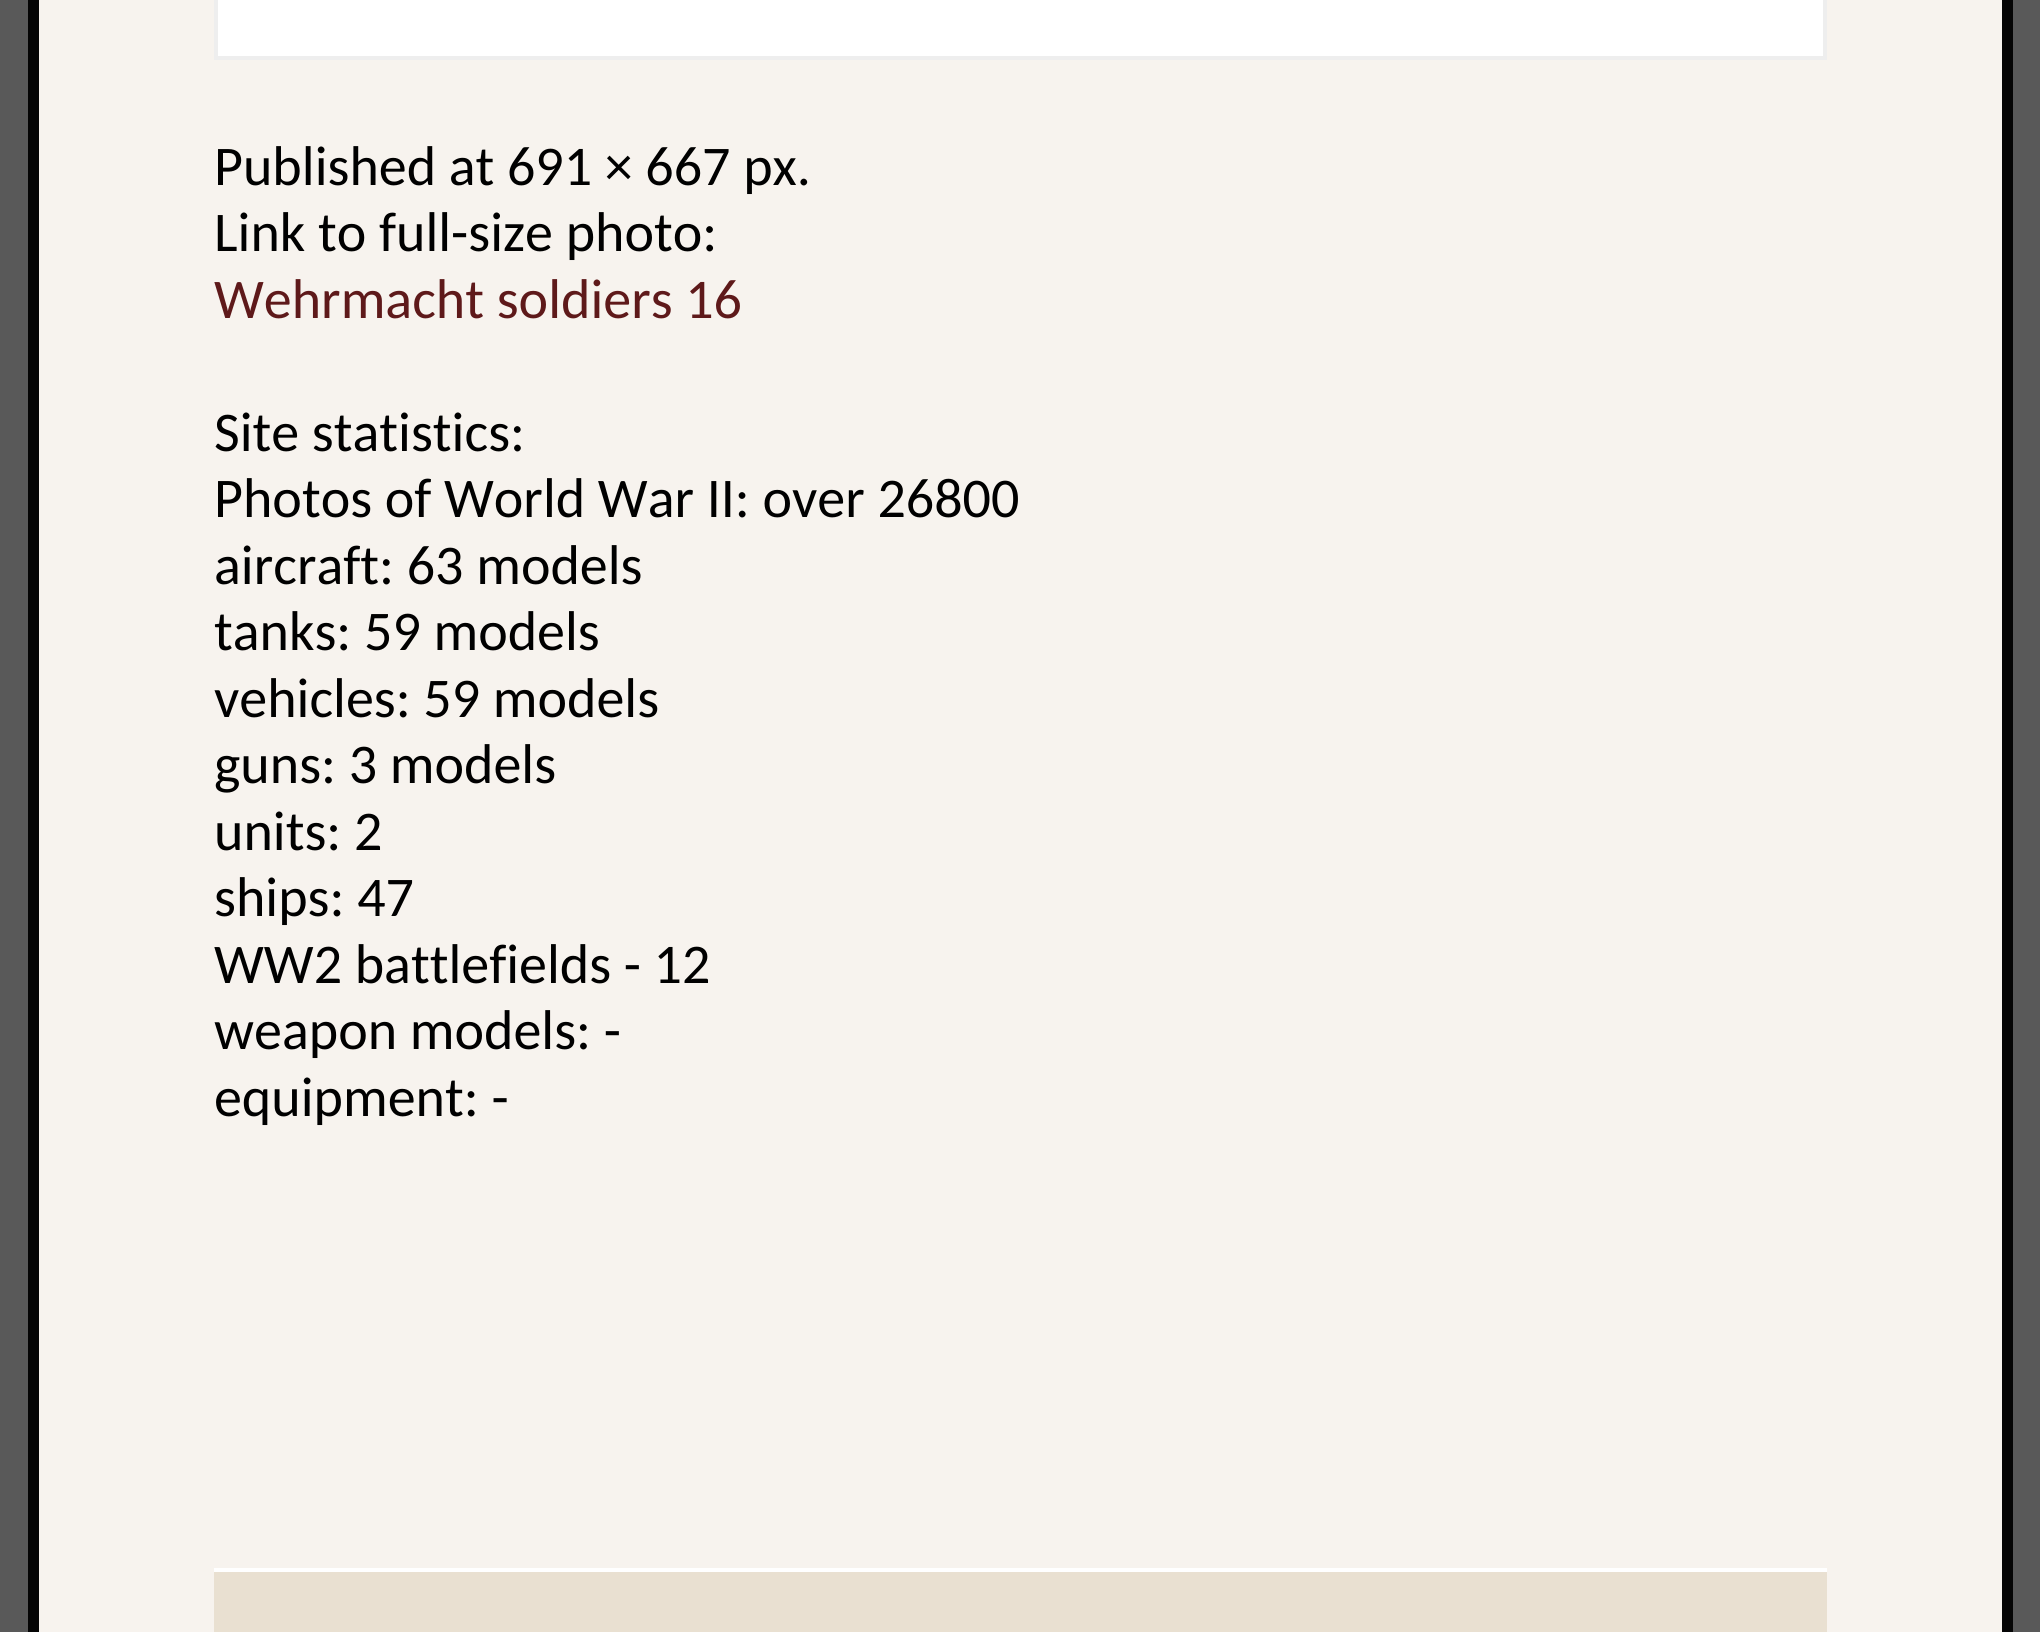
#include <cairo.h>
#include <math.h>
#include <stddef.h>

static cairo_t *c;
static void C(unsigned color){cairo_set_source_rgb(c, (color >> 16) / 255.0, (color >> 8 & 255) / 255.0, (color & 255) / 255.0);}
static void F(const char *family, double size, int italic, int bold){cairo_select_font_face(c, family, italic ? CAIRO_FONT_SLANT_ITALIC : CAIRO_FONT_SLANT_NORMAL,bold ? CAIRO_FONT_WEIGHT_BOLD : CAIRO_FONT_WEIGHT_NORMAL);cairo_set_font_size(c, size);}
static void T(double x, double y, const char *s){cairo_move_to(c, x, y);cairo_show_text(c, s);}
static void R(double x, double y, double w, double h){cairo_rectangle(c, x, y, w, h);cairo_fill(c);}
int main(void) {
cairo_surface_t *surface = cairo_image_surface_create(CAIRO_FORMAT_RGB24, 2040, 1632);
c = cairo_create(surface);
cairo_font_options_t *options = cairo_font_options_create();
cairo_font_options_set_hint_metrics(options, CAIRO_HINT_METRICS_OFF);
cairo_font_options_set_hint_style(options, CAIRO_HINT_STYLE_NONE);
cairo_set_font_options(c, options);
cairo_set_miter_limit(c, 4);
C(0x595959);
cairo_paint(c);
C(0xf7f3ee);
cairo_rectangle(c,33.5,-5.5,1974,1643);
cairo_fill_preserve(c);
C(0x050505);
cairo_set_line_width(c,11);
cairo_stroke(c);
C(0xffffff);
cairo_rectangle(c,216,-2,1609,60);
cairo_fill_preserve(c);
C(0xeeeeee);
cairo_set_line_width(c,4);
cairo_stroke(c);
F("Carlito",56,0,0);
C(0x000000);
T(214,185,"Published at 691 × 667 px.");
T(214,251,"Link to full-size photo:");
C(0x5e191a);
T(214,318,"Wehrmacht soldiers 16");
C(0x000000);
T(214,451,"Site statistics:");
T(214,517,"Photos of World War II: over 26800");
T(214,584,"aircraft: 63 models");
T(214,650,"tanks: 59 models");
T(214,717,"vehicles: 59 models");
T(214,783,"guns: 3 models");
T(214,850,"units: 2");
T(214,916,"ships: 47");
T(214,983,"WW2 battlefields - 12");
T(214,1049,"weapon models: -");
T(214,1116,"equipment: -");
C(0xe9e0d1);
R(214,1572,1613,60);
C(0xffffff);
R(214,1568,1613,4);
cairo_surface_write_to_png(surface, "o.png");
cairo_font_options_destroy(options);
cairo_destroy(c);
cairo_surface_destroy(surface);
return 0;
}
